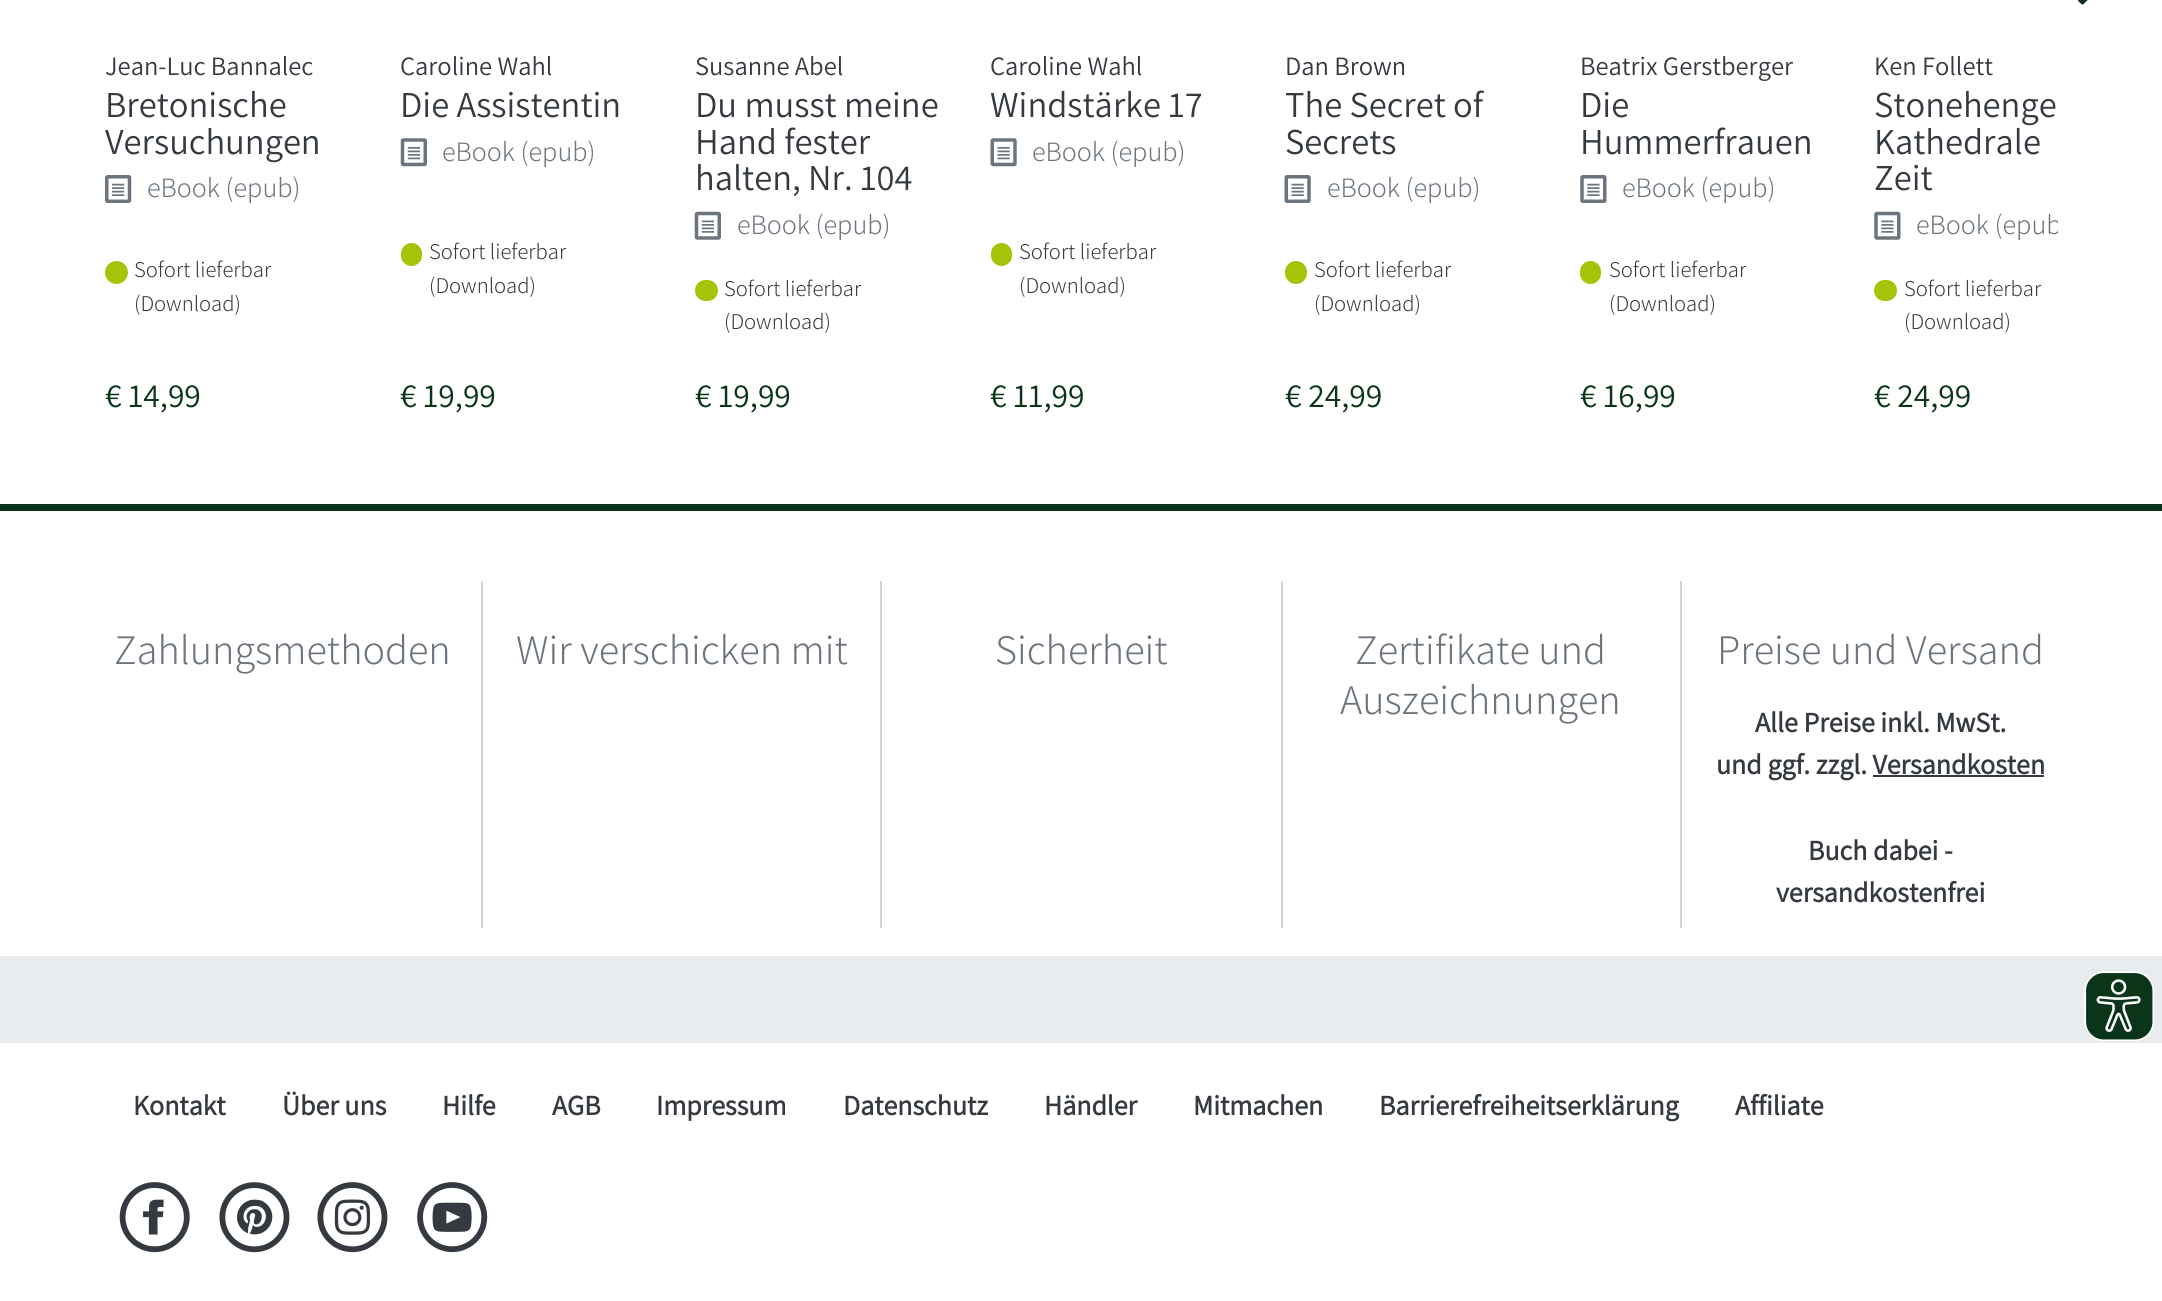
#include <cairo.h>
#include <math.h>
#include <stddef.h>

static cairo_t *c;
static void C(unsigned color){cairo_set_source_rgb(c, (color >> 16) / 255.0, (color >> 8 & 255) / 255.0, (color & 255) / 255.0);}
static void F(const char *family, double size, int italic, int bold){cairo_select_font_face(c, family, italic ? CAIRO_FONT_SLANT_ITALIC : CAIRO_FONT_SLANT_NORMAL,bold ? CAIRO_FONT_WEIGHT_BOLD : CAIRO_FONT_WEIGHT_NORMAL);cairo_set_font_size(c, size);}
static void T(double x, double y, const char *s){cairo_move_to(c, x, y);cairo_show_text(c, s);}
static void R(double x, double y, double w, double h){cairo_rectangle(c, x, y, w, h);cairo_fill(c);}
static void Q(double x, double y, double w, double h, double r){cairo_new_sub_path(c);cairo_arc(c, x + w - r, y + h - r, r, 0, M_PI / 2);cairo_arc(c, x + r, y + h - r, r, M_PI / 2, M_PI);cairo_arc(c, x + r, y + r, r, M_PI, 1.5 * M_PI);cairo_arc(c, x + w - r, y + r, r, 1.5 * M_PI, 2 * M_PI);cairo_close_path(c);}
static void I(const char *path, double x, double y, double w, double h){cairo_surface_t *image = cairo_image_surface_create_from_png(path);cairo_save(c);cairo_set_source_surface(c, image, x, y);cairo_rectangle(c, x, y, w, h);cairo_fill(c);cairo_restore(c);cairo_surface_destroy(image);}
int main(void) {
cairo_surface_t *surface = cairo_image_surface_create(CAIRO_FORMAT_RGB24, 2162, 1301);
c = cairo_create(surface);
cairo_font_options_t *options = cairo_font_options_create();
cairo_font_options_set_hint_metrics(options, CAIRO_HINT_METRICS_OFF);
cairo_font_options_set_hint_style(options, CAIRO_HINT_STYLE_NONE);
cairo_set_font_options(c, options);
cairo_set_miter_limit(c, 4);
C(0xffffff);
cairo_paint(c);
I("1.png",2078,0,10,5);
F("Assistant",26.5,0,0);
C(0x343a40);
T(105,75,"Jean-Luc Bannalec");
F("Assistant",36.5,0,0);
T(105,117,"Bretonische");
T(105,154,"Versuchungen");
I("2.png",105,175,27,28);
F("Assistant Light",28,0,0);
C(0x6c757d);
T(147,197,"eBook (epub)");
C(0xa4c408);
cairo_new_path(c);
cairo_arc(c,116.5,272.5,11.5,0,2 * M_PI);
cairo_fill(c);
F("Assistant Light",22.5,0,0);
C(0x343a40);
T(134,277,"Sofort lieferbar");
T(134,311,"(Download)");
F("Assistant",33.5,0,0);
C(0x0b3519);
T(105,407,"€ 14,99");
F("Assistant",26.5,0,0);
C(0x343a40);
T(400,75,"Caroline Wahl");
F("Assistant",36.5,0,0);
T(400,117,"Die Assistentin");
I("3.png",400,138,27,29);
F("Assistant Light",28,0,0);
C(0x6c757d);
T(442,161,"eBook (epub)");
C(0xa4c408);
Q(401,243,21,23,10.5);
cairo_fill(c);
F("Assistant Light",22.5,0,0);
C(0x343a40);
T(429,259,"Sofort lieferbar");
T(429,293,"(Download)");
F("Assistant",33.5,0,0);
C(0x0b3519);
T(400,407,"€ 19,99");
F("Assistant",26.5,0,0);
C(0x343a40);
T(695,75,"Susanne Abel");
F("Assistant",36.5,0,0);
T(695,117,"Du musst meine");
T(695,154,"Hand fester");
T(695,190,"halten, Nr. 104");
I("4.png",694,211,27,29);
F("Assistant Light",28,0,0);
C(0x6c757d);
T(737,234,"eBook (epub)");
C(0xa4c408);
Q(695,280,23,21,10.5);
cairo_fill(c);
F("Assistant Light",22.5,0,0);
C(0x343a40);
T(724,296,"Sofort lieferbar");
T(724,329,"(Download)");
F("Assistant",33.5,0,0);
C(0x0b3519);
T(695,407,"€ 19,99");
F("Assistant",26.5,0,0);
C(0x343a40);
T(990,75,"Caroline Wahl");
F("Assistant",36.5,0,0);
T(990,117,"Windstärke 17");
I("5.png",990,138,27,29);
F("Assistant Light",28,0,0);
C(0x6c757d);
T(1032,161,"eBook (epub)");
C(0xa4c408);
Q(991,243,21,23,10.5);
cairo_fill(c);
F("Assistant Light",22.5,0,0);
C(0x343a40);
T(1019,259,"Sofort lieferbar");
T(1019,293,"(Download)");
F("Assistant",33.5,0,0);
C(0x0b3519);
T(990,407,"€ 11,99");
F("Assistant",26.5,0,0);
C(0x343a40);
T(1285,75,"Dan Brown");
F("Assistant",36.5,0,0);
T(1285,117,"The Secret of");
T(1285,154,"Secrets");
I("6.png",1284,175,27,28);
F("Assistant Light",28,0,0);
C(0x6c757d);
T(1327,197,"eBook (epub)");
C(0xa4c408);
Q(1285,261,22,23,11);
cairo_fill(c);
F("Assistant Light",22.5,0,0);
C(0x343a40);
T(1314,277,"Sofort lieferbar");
T(1314,311,"(Download)");
F("Assistant",33.5,0,0);
C(0x0b3519);
T(1285,407,"€ 24,99");
F("Assistant",26.5,0,0);
C(0x343a40);
T(1580,75,"Beatrix Gerstberger");
F("Assistant",36.5,0,0);
T(1580,117,"Die");
T(1580,154,"Hummerfrauen");
I("7.png",1580,175,27,28);
F("Assistant Light",28,0,0);
C(0x6c757d);
T(1622,197,"eBook (epub)");
C(0xa4c408);
Q(1580,261,21,23,10.5);
cairo_fill(c);
F("Assistant Light",22.5,0,0);
C(0x343a40);
T(1609,277,"Sofort lieferbar");
T(1609,311,"(Download)");
F("Assistant",33.5,0,0);
C(0x0b3519);
T(1580,407,"€ 16,99");
F("Assistant",26.5,0,0);
C(0x343a40);
T(1874,75,"Ken Follett");
F("Assistant",36.5,0,0);
T(1874,117,"Stonehenge");
T(1874,154,"Kathedrale");
T(1874,190,"Zeit");
I("8.png",1874,211,27,29);
cairo_save(c);
cairo_rectangle(c,105,0,1953,420);
cairo_clip(c);
F("Assistant Light",28,0,0);
C(0x6c757d);
T(1916,234,"eBook (epub");
cairo_restore(c);
C(0xa4c408);
Q(1874,280,23,21,10.5);
cairo_fill(c);
F("Assistant Light",22.5,0,0);
C(0x343a40);
T(1904,296,"Sofort lieferbar");
T(1904,329,"(Download)");
F("Assistant",33.5,0,0);
C(0x0b3519);
T(1874,407,"€ 24,99");
R(0,504,2162,7);
C(0xced4da);
R(481,581,2,347);
F("Assistant Light",42,0,0);
C(0x6c757d);
T(114,664,"Zahlungsmethoden");
C(0xced4da);
R(880,581,2,347);
C(0x6c757d);
T(516,664,"Wir verschicken mit");
C(0xced4da);
R(1281,581,2,347);
C(0x6c757d);
T(995,664,"Sicherheit");
C(0xced4da);
R(1680,581,2,347);
C(0x6c757d);
T(1355,664,"Zertifikate und");
T(1340,714,"Auszeichnungen");
T(1717,664,"Preise und Versand");
F("Assistant",28,0,1);
C(0x343a40);
T(1755,732,"Alle Preise inkl. MwSt.");
T(1716,774,"und ggf. zzgl. Versandkosten");
R(1873,775,171,2);
T(1808,860,"Buch dabei -");
T(1776,902,"versandkostenfrei");
C(0xe9ecef);
R(0,956,2162,87);
C(0x343a40);
T(133,1115,"Kontakt");
T(282,1115,"Über uns");
T(442,1115,"Hilfe");
T(552,1115,"AGB");
T(656,1115,"Impressum");
T(843,1115,"Datenschutz");
T(1044,1115,"Händler");
T(1193,1115,"Mitmachen");
T(1379,1115,"Barrierefreiheitserklärung");
T(1735,1115,"Affiliate");
I("9.png",119,1182,71,71);
I("10.png",219,1182,71,71);
I("11.png",317,1182,71,71);
I("12.png",417,1182,71,71);
I("13.png",2084,971,70,70);
cairo_surface_write_to_png(surface, "o.png");
cairo_font_options_destroy(options);
cairo_destroy(c);
cairo_surface_destroy(surface);
return 0;
}
